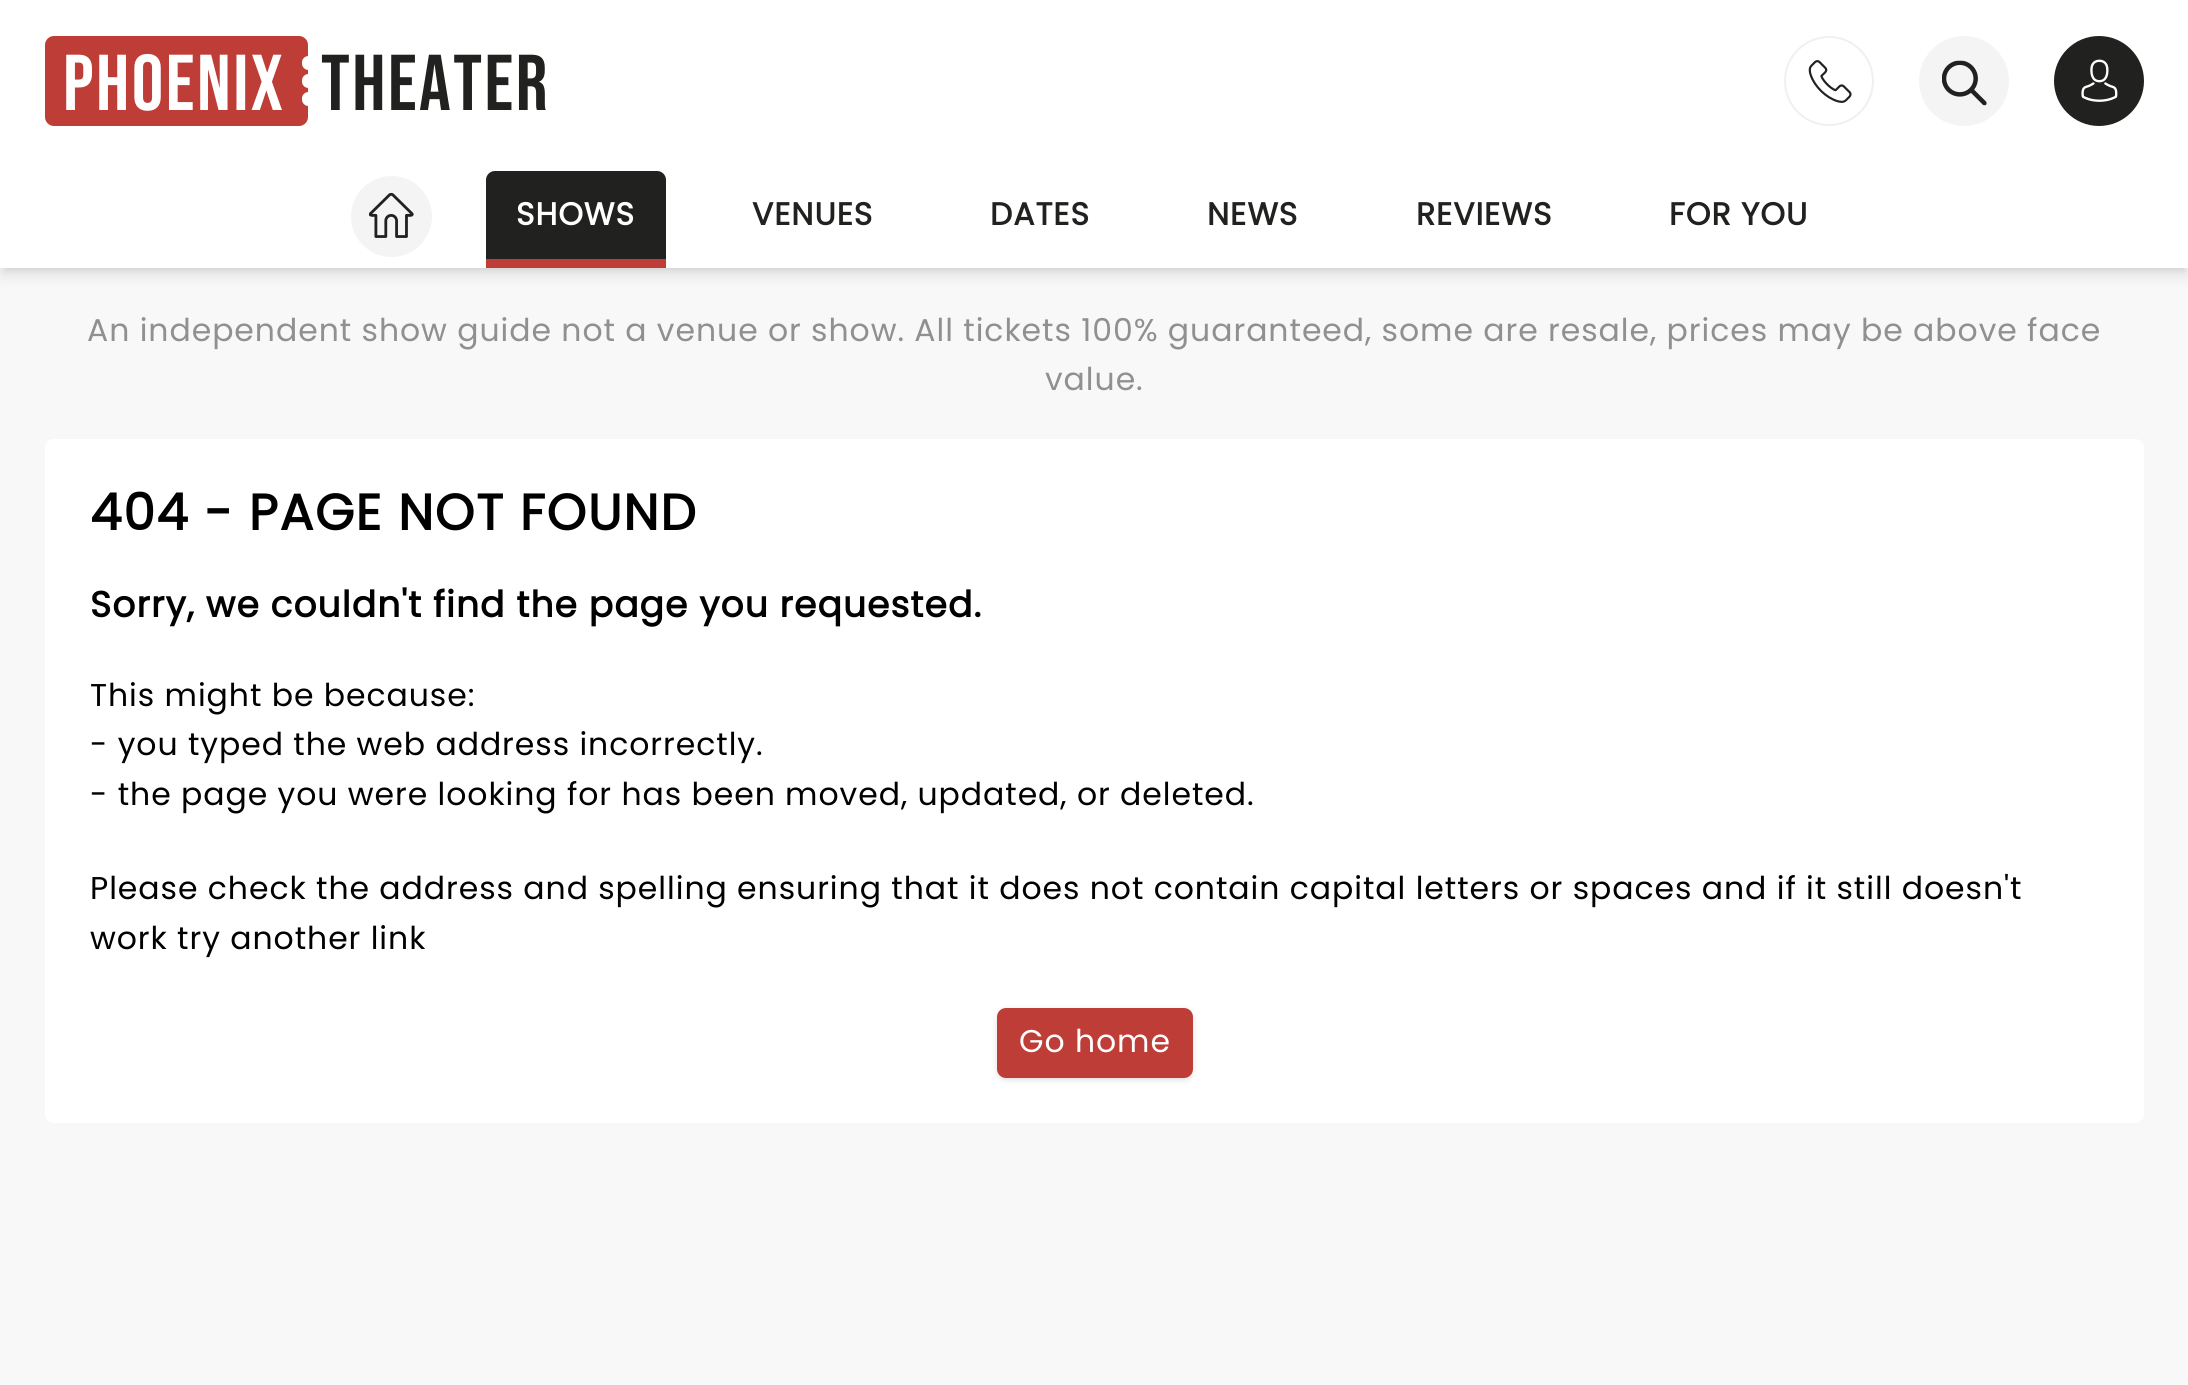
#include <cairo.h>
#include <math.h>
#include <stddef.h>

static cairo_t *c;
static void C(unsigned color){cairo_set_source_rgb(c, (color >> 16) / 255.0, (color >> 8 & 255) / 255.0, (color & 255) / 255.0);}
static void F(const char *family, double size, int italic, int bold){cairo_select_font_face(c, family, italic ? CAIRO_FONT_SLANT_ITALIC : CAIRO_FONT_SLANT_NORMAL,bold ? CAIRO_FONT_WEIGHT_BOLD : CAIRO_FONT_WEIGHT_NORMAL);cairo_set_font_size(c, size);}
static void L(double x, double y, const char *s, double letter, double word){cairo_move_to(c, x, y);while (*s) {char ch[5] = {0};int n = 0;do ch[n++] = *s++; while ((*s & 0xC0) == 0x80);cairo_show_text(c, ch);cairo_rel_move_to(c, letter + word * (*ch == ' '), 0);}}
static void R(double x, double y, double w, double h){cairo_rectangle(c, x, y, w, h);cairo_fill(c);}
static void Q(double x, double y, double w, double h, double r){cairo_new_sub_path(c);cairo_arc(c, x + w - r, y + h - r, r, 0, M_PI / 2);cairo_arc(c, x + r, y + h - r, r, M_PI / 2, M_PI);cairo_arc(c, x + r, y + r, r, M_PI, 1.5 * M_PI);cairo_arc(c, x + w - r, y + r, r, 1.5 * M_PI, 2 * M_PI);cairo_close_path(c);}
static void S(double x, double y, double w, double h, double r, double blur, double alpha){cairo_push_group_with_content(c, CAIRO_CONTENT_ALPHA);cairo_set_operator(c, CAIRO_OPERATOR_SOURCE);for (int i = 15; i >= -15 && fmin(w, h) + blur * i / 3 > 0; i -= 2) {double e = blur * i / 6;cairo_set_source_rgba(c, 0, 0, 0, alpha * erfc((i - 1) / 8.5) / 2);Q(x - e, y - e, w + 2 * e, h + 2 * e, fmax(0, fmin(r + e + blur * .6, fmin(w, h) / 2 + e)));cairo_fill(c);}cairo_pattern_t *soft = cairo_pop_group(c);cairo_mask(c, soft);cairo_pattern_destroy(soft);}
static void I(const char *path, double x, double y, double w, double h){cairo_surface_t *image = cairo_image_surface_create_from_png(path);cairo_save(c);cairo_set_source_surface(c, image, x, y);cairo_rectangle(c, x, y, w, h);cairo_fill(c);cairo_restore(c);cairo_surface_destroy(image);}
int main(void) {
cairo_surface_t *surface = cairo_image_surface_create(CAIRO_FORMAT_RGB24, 2188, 1385);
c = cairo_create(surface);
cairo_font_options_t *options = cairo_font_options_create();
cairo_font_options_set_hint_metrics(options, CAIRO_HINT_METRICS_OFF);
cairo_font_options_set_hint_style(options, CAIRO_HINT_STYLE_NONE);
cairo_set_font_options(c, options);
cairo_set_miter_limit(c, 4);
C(0xf8f8f8);
cairo_paint(c);
C(0x000000);
S(5,135,2180,133,0,4.5,.1);
S(2,137,2185,138,0,7,.1);
C(0xffffff);
R(0,0,2188,268);
C(0xbf3d37);
Q(45,36,263,90,9);
cairo_fill(c);
F("Bebas Neue",79,0,0);
C(0xffffff);
L(63,110,"Phoenix",2.5,0);
Q(302,56,13,14,6.5);
cairo_fill(c);
Q(302,74,13,14,6.5);
cairo_fill(c);
Q(302,92,13,14,6.5);
cairo_fill(c);
C(0x212120);
L(321,110,"Theater",2.5,0);
cairo_new_path(c);
cairo_arc(c,1829,81,44,0,2 * M_PI);
C(0xf0f0f0);
cairo_stroke(c);
I("1.png",1808,60,44,43);
C(0xf4f4f4);
cairo_arc(c,1964,81,45,0,2 * M_PI);
cairo_fill(c);
I("2.png",1942,60,45,46);
C(0x212120);
cairo_arc(c,2099,81,45,0,2 * M_PI);
cairo_fill(c);
I("3.png",2081,59,37,43);
C(0xf4f4f4);
cairo_arc(c,391.5,216.5,40.5,0,2 * M_PI);
cairo_fill(c);
I("4.png",369,192,45,46);
C(0x212120);
cairo_new_path(c);
cairo_move_to(c,495,171);
cairo_line_to(c,657,171);
cairo_curve_to(c,662,171,666,175,666,180);
cairo_line_to(c,666,259);
cairo_line_to(c,486,259);
cairo_line_to(c,486,180);
cairo_curve_to(c,486,175,490,171,495,171);
cairo_close_path(c);
cairo_fill(c);
C(0xbf3d37);
R(486,259,180,9);
F("Poppins",31.5,0,1);
C(0xffffff);
L(516,225,"SHOWS",.94,0);
C(0x212120);
L(752,225,"VENUES",.94,0);
L(990,225,"DATES",.94,0);
L(1207,225,"NEWS",.94,0);
L(1416,225,"REVIEWS",.94,0);
L(1669,225,"FOR YOU",.94,0);
F("Poppins",31.5,0,0);
C(0x90908f);
L(87,341,"An independent show guide not a venue or show. All tickets 100% guaranteed, some are resale, prices may be above face",.94,0);
L(1045,390,"value.",.94,0);
C(0xffffff);
Q(45,439,2099,684,9);
cairo_fill(c);
F("Poppins",50.4,0,1);
C(0x000000);
L(90,530,"404 - PAGE NOT FOUND",1.5,0);
F("Poppins",36,0,1);
L(90,617,"Sorry, we couldn't find the page you requested.",1.1,0);
F("Poppins",31.5,0,0);
L(90,706,"This might be because:",.94,0);
L(90,755,"- you typed the web address incorrectly.",.94,0);
L(90,805,"- the page you were looking for has been moved, updated, or deleted.",.94,0);
L(90,899,"Please check the address and spelling ensuring that it does not contain capital letters or spaces and if it still doesn't",.94,0);
L(90,949,"work try another link",.94,0);
C(0x000000);
S(999,1013,191,65,7,2,.1);
S(997,1010,196,70,9,3.5,.1);
C(0xbf3d37);
Q(997,1008,196,70,9);
cairo_fill(c);
C(0xffffff);
L(1019,1052,"Go home",.94,0);
cairo_surface_write_to_png(surface, "o.png");
cairo_font_options_destroy(options);
cairo_destroy(c);
cairo_surface_destroy(surface);
return 0;
}
